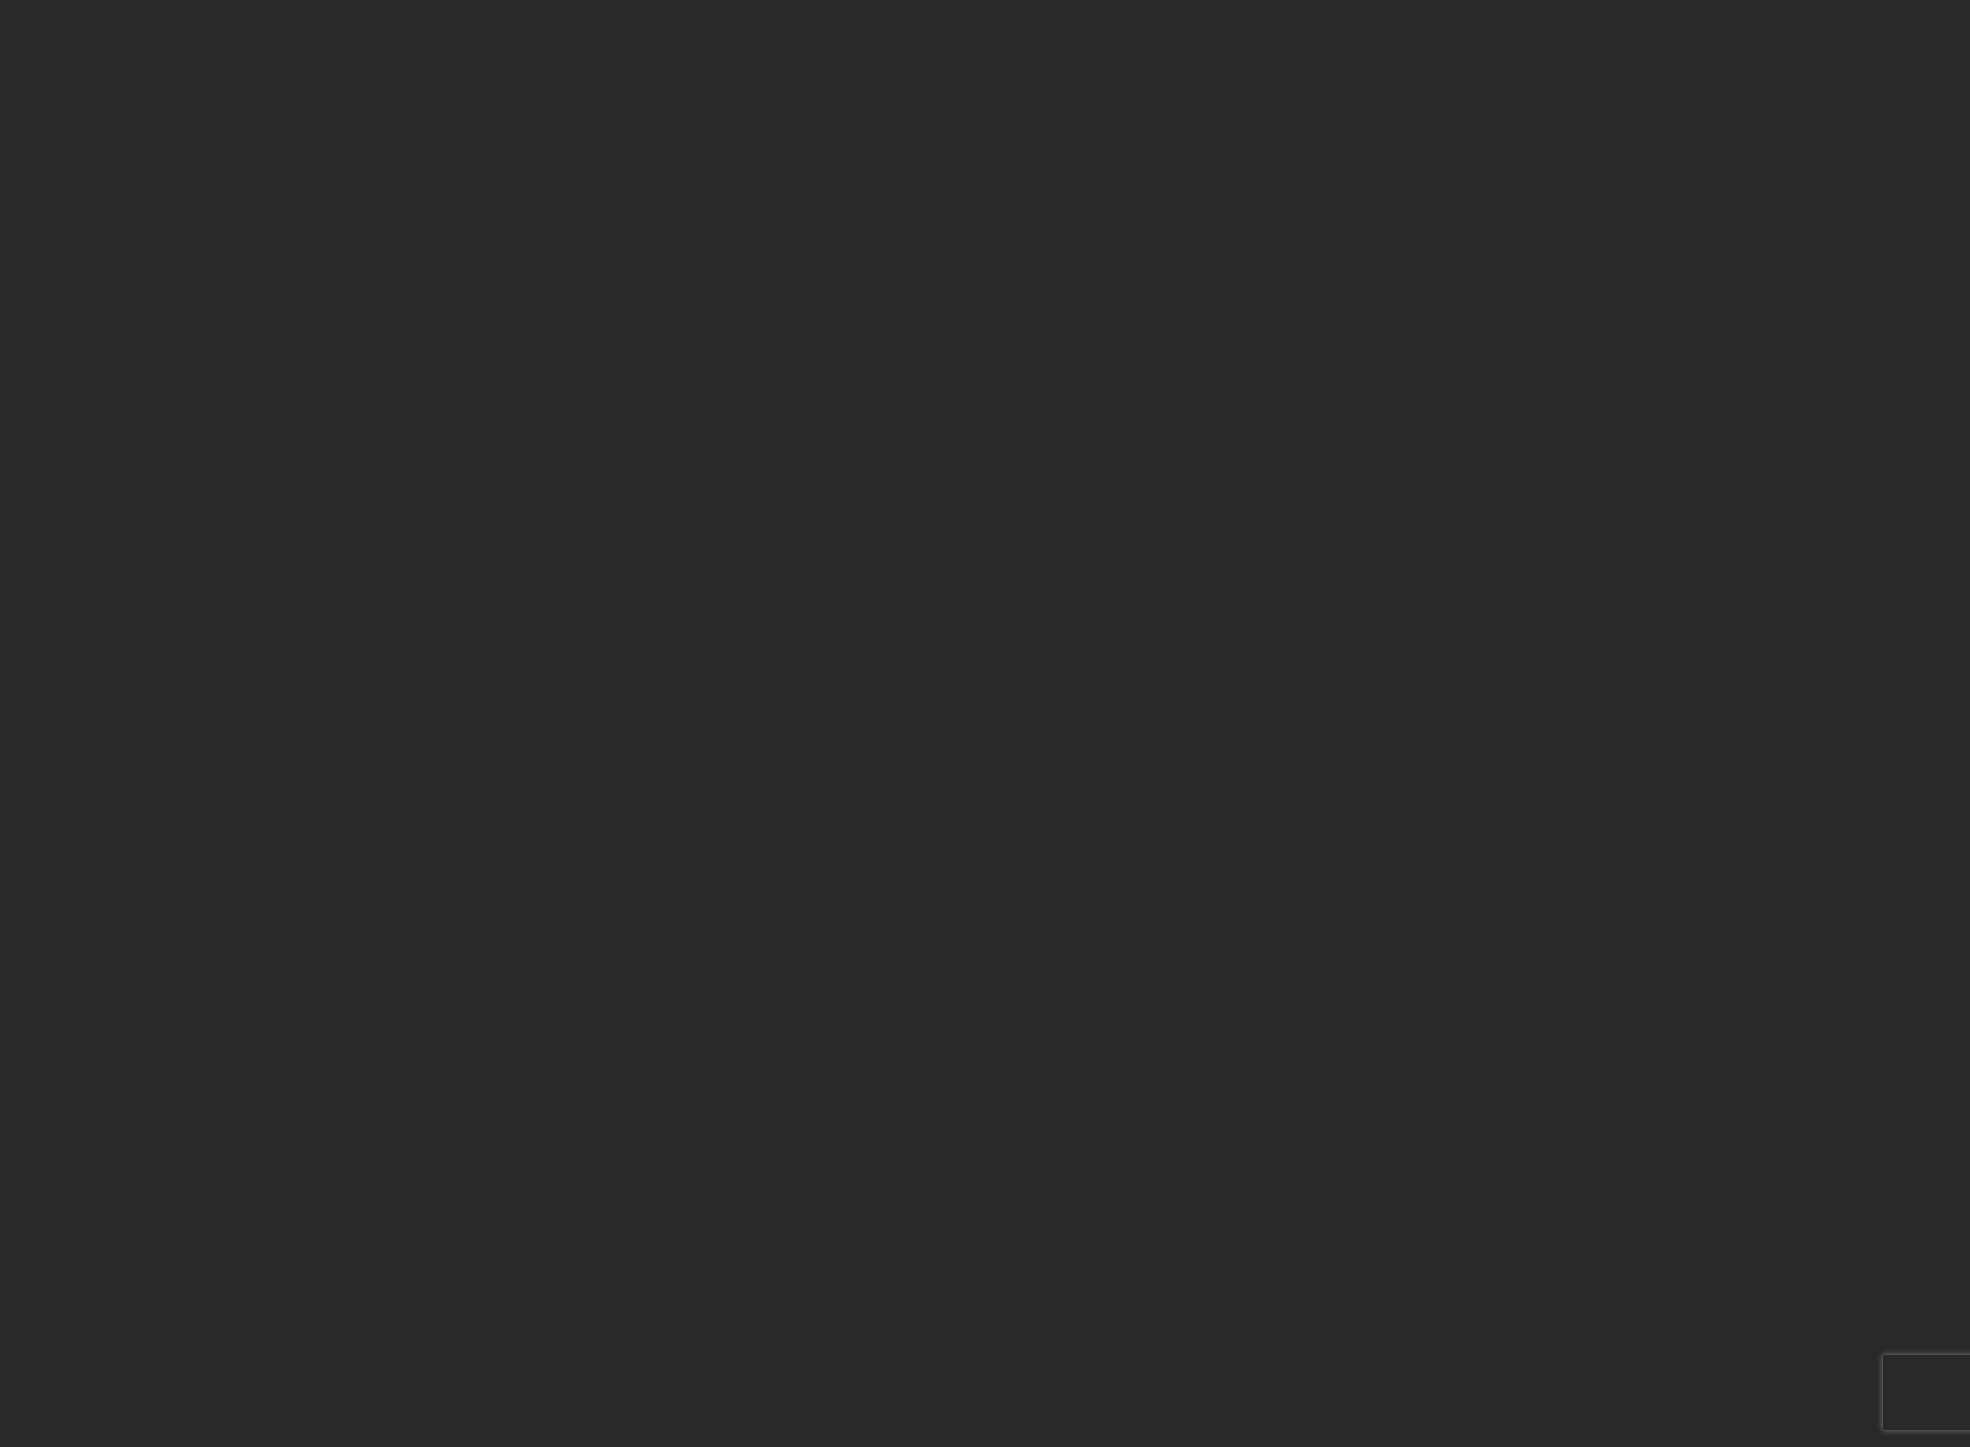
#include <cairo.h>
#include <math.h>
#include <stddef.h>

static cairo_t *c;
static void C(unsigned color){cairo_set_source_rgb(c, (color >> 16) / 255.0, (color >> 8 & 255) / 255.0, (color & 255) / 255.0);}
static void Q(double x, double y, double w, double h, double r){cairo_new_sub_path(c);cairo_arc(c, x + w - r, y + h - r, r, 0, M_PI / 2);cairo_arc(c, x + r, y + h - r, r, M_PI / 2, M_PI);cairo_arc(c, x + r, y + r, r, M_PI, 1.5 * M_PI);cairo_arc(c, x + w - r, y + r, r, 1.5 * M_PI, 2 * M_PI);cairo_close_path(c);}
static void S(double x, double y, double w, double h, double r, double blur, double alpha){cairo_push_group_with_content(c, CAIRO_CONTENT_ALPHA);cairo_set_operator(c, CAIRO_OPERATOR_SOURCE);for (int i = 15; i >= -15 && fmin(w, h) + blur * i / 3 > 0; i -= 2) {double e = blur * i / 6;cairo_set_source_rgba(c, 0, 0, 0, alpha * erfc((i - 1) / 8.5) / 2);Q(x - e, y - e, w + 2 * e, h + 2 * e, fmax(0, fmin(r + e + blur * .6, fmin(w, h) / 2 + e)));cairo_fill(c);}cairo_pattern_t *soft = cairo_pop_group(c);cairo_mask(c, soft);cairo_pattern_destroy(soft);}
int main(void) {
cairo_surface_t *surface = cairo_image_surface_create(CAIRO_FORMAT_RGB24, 1970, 1447);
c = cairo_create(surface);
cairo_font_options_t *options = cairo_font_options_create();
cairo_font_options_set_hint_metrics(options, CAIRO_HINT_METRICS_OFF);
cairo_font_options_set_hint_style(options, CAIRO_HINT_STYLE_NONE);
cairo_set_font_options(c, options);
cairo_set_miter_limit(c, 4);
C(0x292929);
cairo_paint(c);
cairo_save(c);
cairo_set_fill_rule(c,CAIRO_FILL_RULE_EVEN_ODD);
cairo_new_path(c);
cairo_move_to(c,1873,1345);
cairo_line_to(c,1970,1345);
cairo_line_to(c,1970,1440);
cairo_line_to(c,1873,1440);
cairo_close_path(c);
cairo_move_to(c,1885.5,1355);
cairo_line_to(c,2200.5,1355);
cairo_curve_to(c,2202,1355,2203,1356,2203,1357.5);
cairo_line_to(c,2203,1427.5);
cairo_curve_to(c,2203,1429,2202,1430,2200.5,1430);
cairo_line_to(c,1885.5,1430);
cairo_curve_to(c,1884,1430,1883,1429,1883,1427.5);
cairo_line_to(c,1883,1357.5);
cairo_curve_to(c,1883,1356,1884,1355,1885.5,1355);
cairo_close_path(c);
cairo_clip(c);
C(0x808080);
S(1883,1355,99,75,2.5,3,1);
cairo_restore(c);
cairo_surface_write_to_png(surface, "o.png");
cairo_font_options_destroy(options);
cairo_destroy(c);
cairo_surface_destroy(surface);
return 0;
}
